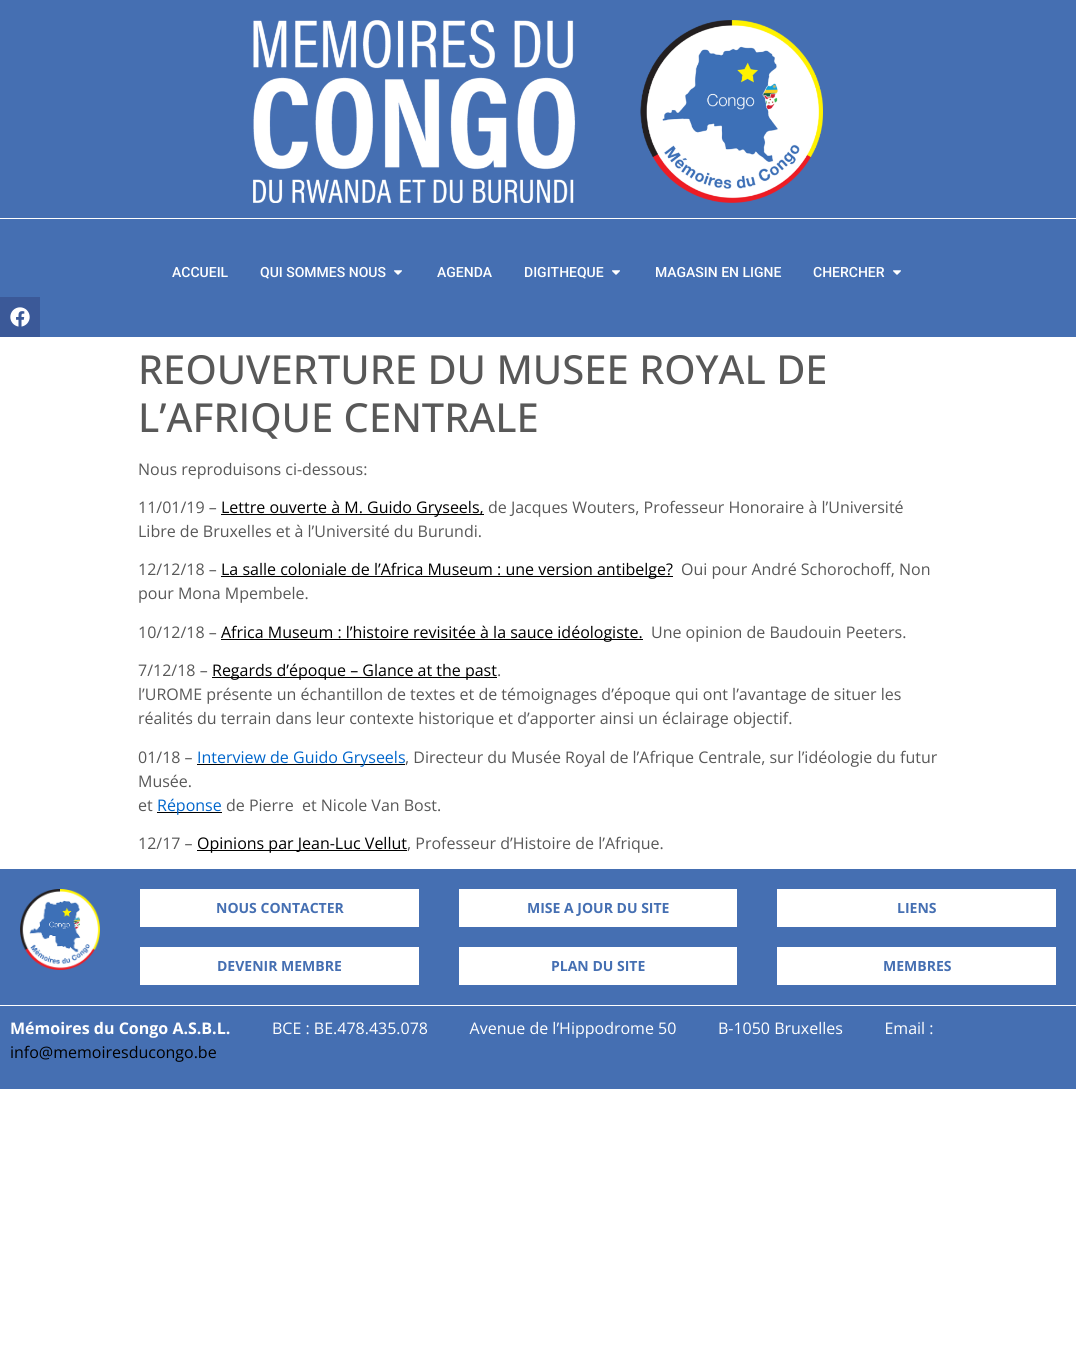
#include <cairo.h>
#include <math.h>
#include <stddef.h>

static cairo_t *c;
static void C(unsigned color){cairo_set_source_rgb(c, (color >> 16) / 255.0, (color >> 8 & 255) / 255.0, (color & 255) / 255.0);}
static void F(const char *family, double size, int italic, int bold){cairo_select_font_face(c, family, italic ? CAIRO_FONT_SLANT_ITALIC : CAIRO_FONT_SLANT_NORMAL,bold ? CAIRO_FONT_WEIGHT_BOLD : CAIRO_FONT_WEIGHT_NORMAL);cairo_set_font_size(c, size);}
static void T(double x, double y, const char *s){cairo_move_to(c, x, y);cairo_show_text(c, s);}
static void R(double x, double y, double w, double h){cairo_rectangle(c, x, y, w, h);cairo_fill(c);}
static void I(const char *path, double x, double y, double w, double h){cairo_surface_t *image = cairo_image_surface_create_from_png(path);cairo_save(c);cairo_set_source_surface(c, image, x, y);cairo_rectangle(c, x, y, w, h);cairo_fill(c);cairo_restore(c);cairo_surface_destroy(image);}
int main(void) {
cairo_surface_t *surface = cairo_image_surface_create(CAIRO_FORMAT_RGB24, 1076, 1357);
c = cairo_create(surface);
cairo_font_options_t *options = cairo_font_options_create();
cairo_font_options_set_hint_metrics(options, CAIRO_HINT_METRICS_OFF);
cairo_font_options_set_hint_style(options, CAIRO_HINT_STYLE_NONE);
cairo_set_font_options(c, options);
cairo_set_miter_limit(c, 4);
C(0xffffff);
cairo_paint(c);
C(0x456fb2);
R(0,0,1076,337);
I("1.png",253,20,570,183);
C(0xffffff);
R(0,218,1076,1);
F("Roboto Medium",14,0,0);
T(172,277,"ACCUEIL");
T(260,277,"QUI SOMMES NOUS");
I("2.png",394,270,8,5);
T(437,277,"AGENDA");
T(524,277,"DIGITHEQUE");
I("2.png",612,270,8,5);
T(655,277,"MAGASIN EN LIGNE");
T(813,277,"CHERCHER");
I("2.png",893,270,8,5);
C(0x3b5998);
R(0,297,40,40);
I("3.png",10,307,20,20);
F("Open Sans Medium",40,0,0);
C(0x585858);
T(138,384,"REOUVERTURE DU MUSEE ROYAL DE");
T(138,432,"L’AFRIQUE CENTRALE");
F("Open Sans",16,0,0);
T(138,475,"Nous reproduisons ci-dessous:");
T(138,513,"11/01/19 –");
C(0x000000);
R(221,514,263,1);
T(221,513,"Lettre ouverte à M. Guido Gryseels,");
C(0x585858);
T(488,513,"de Jacques Wouters, Professeur Honoraire à l’Université");
T(138,537,"Libre de Bruxelles et à l’Université du Burundi.");
T(138,575,"12/12/18 –");
C(0x000000);
R(221,576,452,1);
T(221,575,"La salle coloniale de l’Africa Museum : une version antibelge?");
C(0x585858);
T(681,575,"Oui pour André Schorochoff, Non");
T(138,599,"pour Mona Mpembele.");
T(138,638,"10/12/18 –");
C(0x000000);
R(221,639,422,1);
T(221,638,"Africa Museum : l’histoire revisitée à la sauce idéologiste.");
C(0x585858);
T(651,638,"Une opinion de Baudouin Peeters.");
T(138,676,"7/12/18 –");
C(0x000000);
R(212,677,285,1);
T(212,676,"Regards d’époque – Glance at the past");
C(0x585858);
T(497,676,".");
T(138,700,"l’UROME présente un échantillon de textes et de témoignages d’époque qui ont l’avantage de situer les");
T(138,724,"réalités du terrain dans leur contexte historique et d’apporter ainsi un éclairage objectif.");
T(138,763,"01/18 –");
C(0x000000);
R(197,764,208,1);
C(0x0066cc);
T(197,763,"Interview de Guido Gryseels");
C(0x585858);
T(405,763,", Directeur du Musée Royal de l’Afrique Centrale, sur l’idéologie du futur");
T(138,787,"Musée.");
T(138,811,"et");
C(0x000000);
R(157,812,65,1);
C(0x0066cc);
T(157,811,"Réponse");
C(0x585858);
T(226,811,"de Pierre  et Nicole Van Bost.");
T(138,849,"12/17 –");
C(0x000000);
R(197,850,210,1);
T(197,849,"Opinions par Jean-Luc Vellut");
C(0x585858);
T(407,849,", Professeur d’Histoire de l’Afrique.");
C(0x456fb2);
R(0,869,1076,136);
I("4.png",20,889,80,81);
C(0xffffff);
R(140,889,279,38);
F("Open Sans",14,0,1);
C(0x456fb2);
T(216,913,"NOUS CONTACTER");
C(0xffffff);
R(140,947,279,38);
C(0x456fb2);
T(217,971,"DEVENIR MEMBRE");
C(0xffffff);
R(459,889,278,38);
C(0x456fb2);
T(527,913,"MISE A JOUR DU SITE");
C(0xffffff);
R(459,947,278,38);
C(0x456fb2);
T(551,971,"PLAN DU SITE");
C(0xffffff);
R(777,889,279,38);
C(0x456fb2);
T(897,913,"LIENS");
C(0xffffff);
R(777,947,279,38);
C(0x456fb2);
T(883,971,"MEMBRES");
R(0,1006,1076,83);
F("Open Sans",16,0,1);
C(0xffffff);
T(10,1034,"Mémoires du Congo A.S.B.L.");
F("Open Sans",16,0,0);
T(272,1034,"BCE : BE.478.435.078          Avenue de l’Hippodrome 50          B-1050 Bruxelles          Email :");
C(0x000000);
T(10,1058,"info@memoiresducongo.be");
cairo_surface_write_to_png(surface, "o.png");
cairo_font_options_destroy(options);
cairo_destroy(c);
cairo_surface_destroy(surface);
return 0;
}
